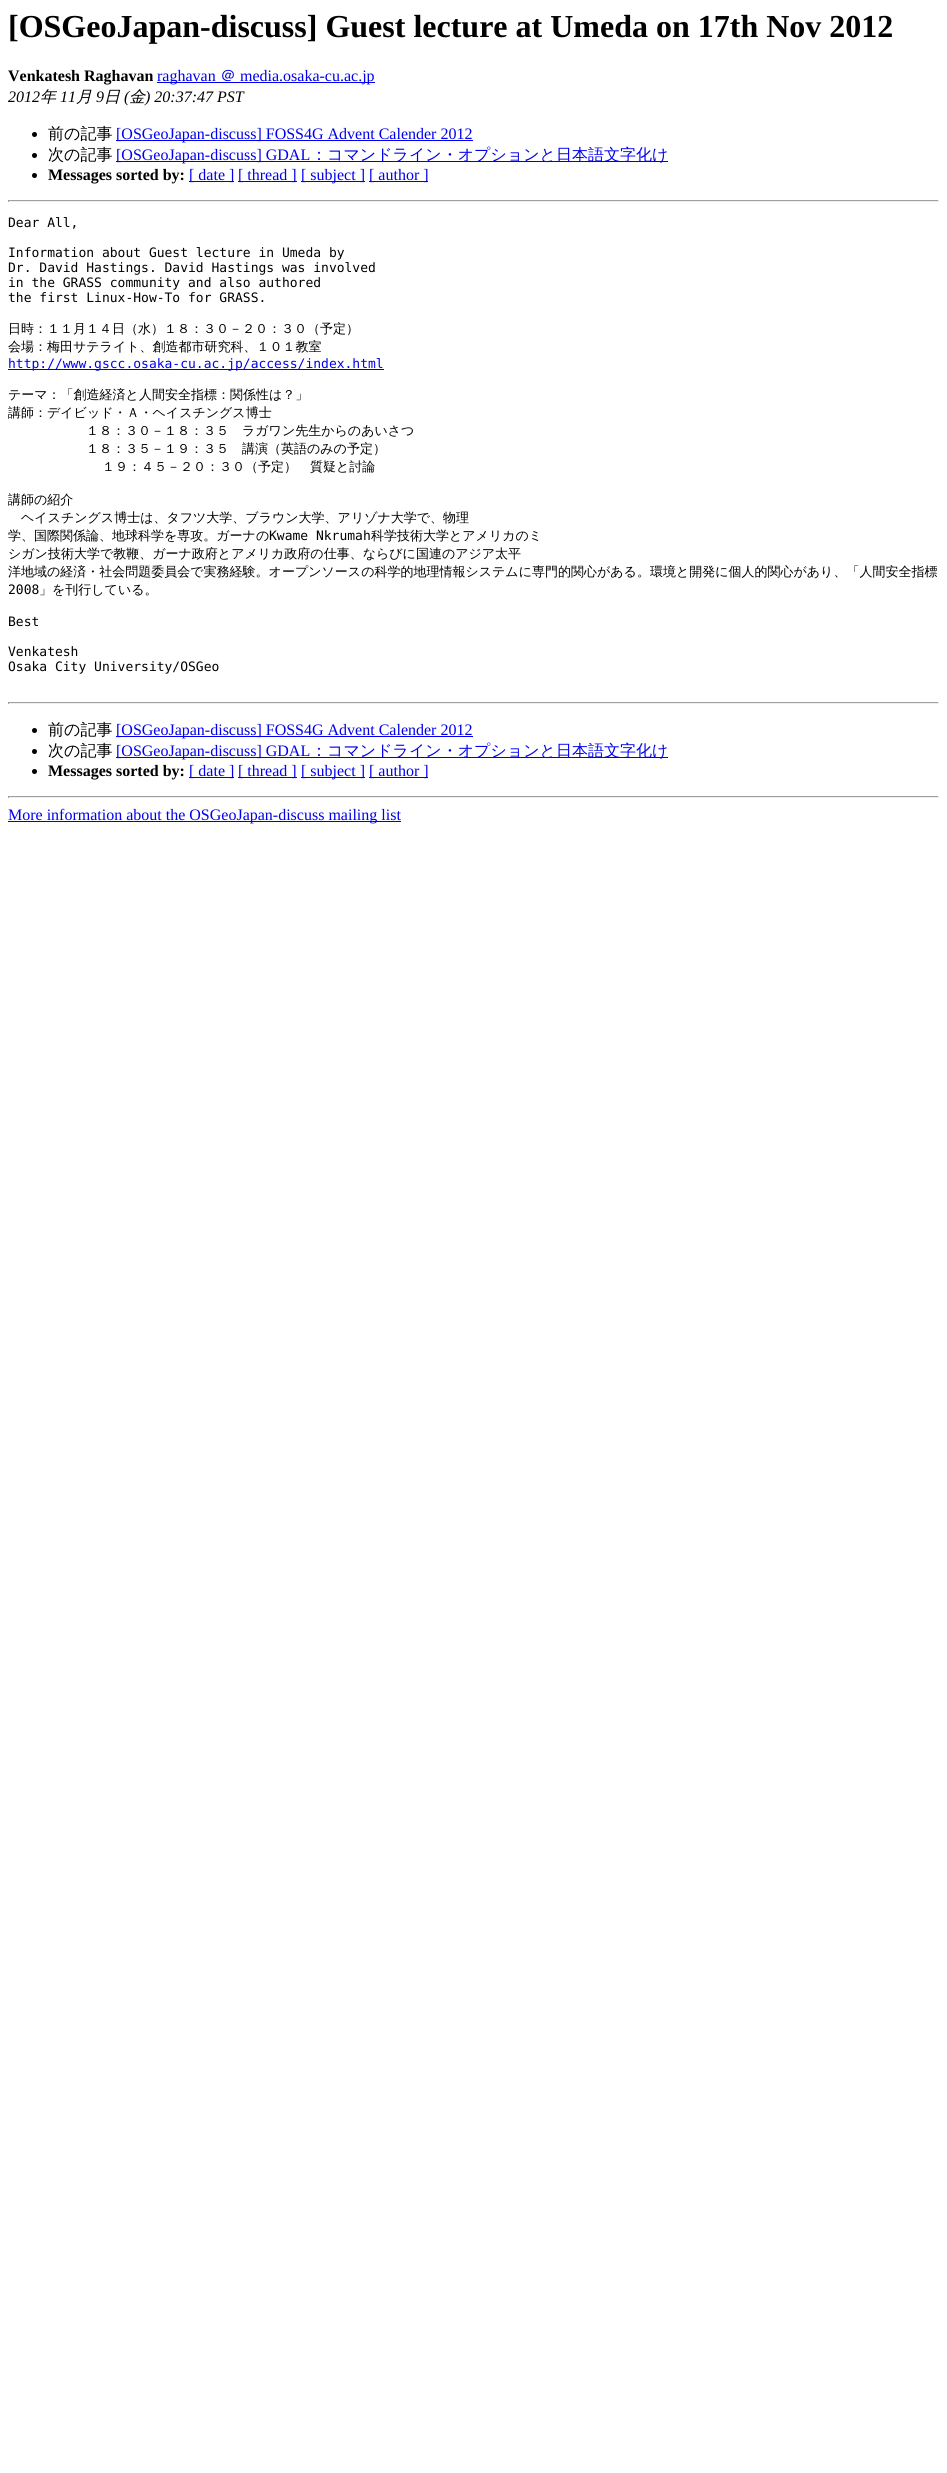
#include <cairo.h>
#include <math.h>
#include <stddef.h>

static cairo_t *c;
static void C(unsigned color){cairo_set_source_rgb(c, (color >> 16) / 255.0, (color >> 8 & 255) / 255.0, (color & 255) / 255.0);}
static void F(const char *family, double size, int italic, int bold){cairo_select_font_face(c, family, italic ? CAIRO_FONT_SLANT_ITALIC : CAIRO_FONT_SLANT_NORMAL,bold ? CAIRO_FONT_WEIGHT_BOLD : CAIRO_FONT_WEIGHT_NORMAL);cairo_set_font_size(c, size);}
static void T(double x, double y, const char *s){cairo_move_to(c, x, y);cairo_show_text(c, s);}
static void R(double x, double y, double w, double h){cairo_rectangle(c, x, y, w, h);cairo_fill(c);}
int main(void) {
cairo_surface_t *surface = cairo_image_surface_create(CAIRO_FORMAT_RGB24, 947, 2473);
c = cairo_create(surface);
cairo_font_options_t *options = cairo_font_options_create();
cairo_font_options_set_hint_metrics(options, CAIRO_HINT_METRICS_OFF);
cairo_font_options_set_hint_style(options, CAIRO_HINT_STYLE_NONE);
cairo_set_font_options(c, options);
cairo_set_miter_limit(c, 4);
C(0xffffff);
cairo_paint(c);
F("Liberation Serif",32,0,1);
C(0x000000);
T(8,37,"[OSGeoJapan-discuss] Guest lecture at Umeda on 17th Nov 2012");
F("Liberation Serif",16,0,1);
T(8,81,"Venkatesh Raghavan");
C(0x0000ee);
R(157,82,218,1);
F("Liberation Serif",16,0,0);
T(157,81,"raghavan");
F("WenQuanYi Zen Hei Medium",16,0,0);
T(220,81,"＠");
F("Liberation Serif",16,0,0);
T(240,81,"media.osaka-cu.ac.jp");
F("Liberation Serif",16,1,0);
C(0x000000);
T(8,102,"2012");
F("WenQuanYi Zen Hei Medium",16,1,0);
T(40,102,"年");
F("Liberation Serif",16,1,0);
T(60,102,"11");
F("WenQuanYi Zen Hei Medium",16,1,0);
T(76,102,"月");
F("Liberation Serif",16,1,0);
T(96,102,"9");
F("WenQuanYi Zen Hei Medium",16,1,0);
T(104,102,"日");
F("Liberation Serif",16,1,0);
T(124,102,"(");
F("WenQuanYi Zen Hei Medium",16,1,0);
T(129,102,"金");
F("Liberation Serif",16,1,0);
T(145,102,") 20:37:47 PST");
cairo_new_path(c);
cairo_arc(c,34.5,134.5,2.5,0,2 * M_PI);
cairo_fill(c);
F("WenQuanYi Zen Hei Medium",16,0,0);
T(48,139,"前の記事");
C(0x0000ee);
R(116,140,357,1);
F("Liberation Serif",16,0,0);
T(116,139,"[OSGeoJapan-discuss] FOSS4G Advent Calender 2012");
C(0x000000);
cairo_new_path(c);
cairo_arc(c,34.5,155.5,2.5,0,2 * M_PI);
cairo_fill(c);
F("WenQuanYi Zen Hei Medium",16,0,0);
T(48,160,"次の記事");
C(0x0000ee);
R(116,161,552,1);
F("Liberation Serif",16,0,0);
T(116,160,"[OSGeoJapan-discuss] GDAL");
F("WenQuanYi Zen Hei Medium",16,0,0);
T(311,160,"：コマンドライン・オプションと日本語文字化け");
C(0x000000);
cairo_new_path(c);
cairo_arc(c,34.5,175.5,2.5,0,2 * M_PI);
cairo_fill(c);
F("Liberation Serif",16,0,1);
T(48,180,"Messages sorted by:");
C(0x0000ee);
R(189,181,45,1);
F("Liberation Serif",16,0,0);
T(189,180,"[ date ]");
R(238,181,59,1);
T(238,180,"[ thread ]");
R(301,181,64,1);
T(301,180,"[ subject ]");
R(369,181,59,1);
T(369,180,"[ author ]");
C(0x9f9f9f);
R(8,200,931,1);
C(0xeeeeee);
R(938,200,1,2);
R(8,201,931,1);
C(0x9f9f9f);
R(8,200,1,2);
F("DejaVu Sans Mono",13,0,0);
C(0x000000);
T(8,227,"Dear All,");
T(8,257,"Information about Guest lecture in Umeda by");
T(8,272,"Dr. David Hastings. David Hastings was involved");
T(8,287,"in the GRASS community and also authored");
T(8,302,"the first Linux-How-To for GRASS.");
F("WenQuanYi Zen Hei Medium",13,0,0);
T(8,333,"日時：１１月１４日（水）１８：３０－２０：３０（予定）");
T(8,351,"会場：梅田サテライト、創造都市研究科、１０１教室");
C(0x0000ee);
R(8,369,376,1);
F("DejaVu Sans Mono",13,0,0);
T(8,368,"http://www.gscc.osaka-cu.ac.jp/access/index.html");
F("WenQuanYi Zen Hei Medium",13,0,0);
C(0x000000);
T(8,399,"テーマ：「創造経済と人間安全指標：関係性は？」");
T(8,417,"講師：デイビッド・Ａ・ヘイスチングス博士");
T(86,435,"１８：３０－１８：３５　ラガワン先生からのあいさつ");
T(86,453,"１８：３５－１９：３５　講演（英語のみの予定）");
T(102,471,"１９：４５－２０：３０（予定）　質疑と討論");
T(8,504,"講師の紹介");
T(21,522,"ヘイスチングス博士は、タフツ大学、ブラウン大学、アリゾナ大学で、物理");
T(8,540,"学、国際関係論、地球科学を専攻。ガーナの");
F("DejaVu Sans Mono",13,0,0);
T(269,540,"Kwame Nkrumah");
F("WenQuanYi Zen Hei Medium",13,0,0);
T(371,540,"科学技術大学とアメリカのミ");
T(8,558,"シガン技術大学で教鞭、ガーナ政府とアメリカ政府の仕事、ならびに国連のアジア太平");
T(8,576,"洋地域の経済・社会問題委員会で実務経験。オープンソースの科学的地理情報システムに専門的関心がある。環境と開発に個人的関心があり、「人間安全指標");
F("DejaVu Sans Mono",13,0,0);
T(8,594,"2008");
F("WenQuanYi Zen Hei Medium",13,0,0);
T(39,594,"」を刊行している。");
F("DejaVu Sans Mono",13,0,0);
T(8,626,"Best");
T(8,656,"Venkatesh");
T(8,671,"Osaka City University/OSGeo");
C(0x9f9f9f);
R(8,702,931,1);
C(0xeeeeee);
R(938,702,1,2);
R(8,703,931,1);
C(0x9f9f9f);
R(8,702,1,2);
C(0x000000);
cairo_new_path(c);
cairo_arc(c,34.5,730.5,2.5,0,2 * M_PI);
cairo_fill(c);
F("WenQuanYi Zen Hei Medium",16,0,0);
T(48,735,"前の記事");
C(0x0000ee);
R(116,736,357,1);
F("Liberation Serif",16,0,0);
T(116,735,"[OSGeoJapan-discuss] FOSS4G Advent Calender 2012");
C(0x000000);
cairo_new_path(c);
cairo_arc(c,34.5,751.5,2.5,0,2 * M_PI);
cairo_fill(c);
F("WenQuanYi Zen Hei Medium",16,0,0);
T(48,756,"次の記事");
C(0x0000ee);
R(116,757,552,1);
F("Liberation Serif",16,0,0);
T(116,756,"[OSGeoJapan-discuss] GDAL");
F("WenQuanYi Zen Hei Medium",16,0,0);
T(311,756,"：コマンドライン・オプションと日本語文字化け");
C(0x000000);
cairo_new_path(c);
cairo_arc(c,34.5,771.5,2.5,0,2 * M_PI);
cairo_fill(c);
F("Liberation Serif",16,0,1);
T(48,776,"Messages sorted by:");
C(0x0000ee);
R(189,777,45,1);
F("Liberation Serif",16,0,0);
T(189,776,"[ date ]");
R(238,777,59,1);
T(238,776,"[ thread ]");
R(301,777,64,1);
T(301,776,"[ subject ]");
R(369,777,59,1);
T(369,776,"[ author ]");
C(0x9f9f9f);
R(8,796,931,1);
C(0xeeeeee);
R(938,796,1,2);
R(8,797,931,1);
C(0x9f9f9f);
R(8,796,1,2);
C(0x0000ee);
R(8,821,393,1);
T(8,820,"More information about the OSGeoJapan-discuss mailing list");
cairo_surface_write_to_png(surface, "o.png");
cairo_font_options_destroy(options);
cairo_destroy(c);
cairo_surface_destroy(surface);
return 0;
}
